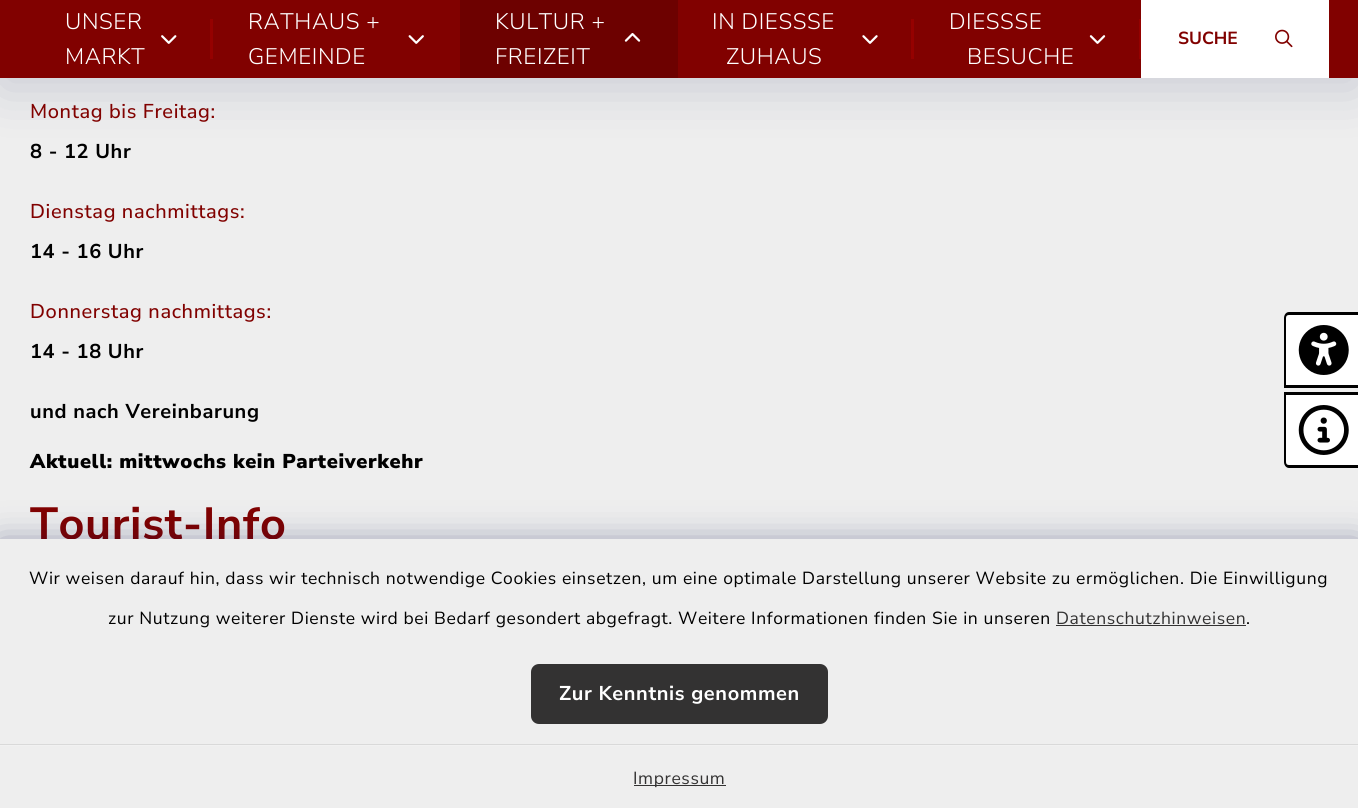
#include <cairo.h>
#include <math.h>
#include <stddef.h>

static cairo_t *c;
static void C(unsigned color){cairo_set_source_rgb(c, (color >> 16) / 255.0, (color >> 8 & 255) / 255.0, (color & 255) / 255.0);}
static void F(const char *family, double size, int italic, int bold){cairo_select_font_face(c, family, italic ? CAIRO_FONT_SLANT_ITALIC : CAIRO_FONT_SLANT_NORMAL,bold ? CAIRO_FONT_WEIGHT_BOLD : CAIRO_FONT_WEIGHT_NORMAL);cairo_set_font_size(c, size);}
static void T(double x, double y, const char *s){cairo_move_to(c, x, y);cairo_show_text(c, s);}
static void L(double x, double y, const char *s, double letter, double word){cairo_move_to(c, x, y);while (*s) {char ch[5] = {0};int n = 0;do ch[n++] = *s++; while ((*s & 0xC0) == 0x80);cairo_show_text(c, ch);cairo_rel_move_to(c, letter + word * (*ch == ' '), 0);}}
static void R(double x, double y, double w, double h){cairo_rectangle(c, x, y, w, h);cairo_fill(c);}
static void Q(double x, double y, double w, double h, double r){cairo_new_sub_path(c);cairo_arc(c, x + w - r, y + h - r, r, 0, M_PI / 2);cairo_arc(c, x + r, y + h - r, r, M_PI / 2, M_PI);cairo_arc(c, x + r, y + r, r, M_PI, 1.5 * M_PI);cairo_arc(c, x + w - r, y + r, r, 1.5 * M_PI, 2 * M_PI);cairo_close_path(c);}
static void S(double x, double y, double w, double h, double r, double blur, double alpha){cairo_push_group_with_content(c, CAIRO_CONTENT_ALPHA);cairo_set_operator(c, CAIRO_OPERATOR_SOURCE);for (int i = 15; i >= -15 && fmin(w, h) + blur * i / 3 > 0; i -= 2) {double e = blur * i / 6;cairo_set_source_rgba(c, 0, 0, 0, alpha * erfc((i - 1) / 8.5) / 2);Q(x - e, y - e, w + 2 * e, h + 2 * e, fmax(0, fmin(r + e + blur * .6, fmin(w, h) / 2 + e)));cairo_fill(c);}cairo_pattern_t *soft = cairo_pop_group(c);cairo_mask(c, soft);cairo_pattern_destroy(soft);}
static void I(const char *path, double x, double y, double w, double h){cairo_surface_t *image = cairo_image_surface_create_from_png(path);cairo_save(c);cairo_set_source_surface(c, image, x, y);cairo_rectangle(c, x, y, w, h);cairo_fill(c);cairo_restore(c);cairo_surface_destroy(image);}
int main(void) {
cairo_surface_t *surface = cairo_image_surface_create(CAIRO_FORMAT_RGB24, 1358, 808);
c = cairo_create(surface);
cairo_font_options_t *options = cairo_font_options_create();
cairo_font_options_set_hint_metrics(options, CAIRO_HINT_METRICS_OFF);
cairo_font_options_set_hint_style(options, CAIRO_HINT_STYLE_NONE);
cairo_set_font_options(c, options);
cairo_set_miter_limit(c, 4);
C(0xeeeeee);
cairo_paint(c);
C(0x040f49);
S(0,10,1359,78,0,27.5,.16);
C(0x810100);
R(0,0,1358,78);
F("Nunito Sans Light",22.5,0,0);
C(0xffffff);
L(65,29,"UNSER",.62,0);
I("1.png",161,35,16,9);
L(65,64,"MARKT",.62,0);
C(0x950100);
R(210,19,3,40);
C(0xffffff);
L(248,29,"RATHAUS +",.62,0);
I("2.png",408,35,16,9);
L(248,64,"GEMEINDE",.62,0);
C(0x6d0100);
R(460,0,218,78);
C(0xffffff);
L(495,29,"KULTUR +",.62,0);
I("3.png",624,33,17,9);
L(495,64,"FREIZEIT",.62,0);
L(712,29,"IN DIESSSE",.62,0);
I("4.png",862,35,16,9);
L(726,64,"ZUHAUS",.62,0);
C(0x950100);
R(911,19,3,40);
C(0xffffff);
L(949,29,"DIESSSE",.62,0);
I("5.png",1089,35,17,9);
L(967,64,"BESUCHE",.62,0);
C(0x950100);
R(1139,19,2,40);
C(0xffffff);
R(1141,0,188,78);
F("Nunito Sans",17.5,0,1);
C(0x810100);
T(1178,44,"SUCHE");
I("6.png",1275,29,18,19);
F("Nunito Sans Medium",20,0,0);
L(30,118,"Montag bis Freitag:",.62,0);
F("Nunito Sans",20,0,1);
C(0x000000);
L(30,158,"8 - 12 Uhr",.62,0);
F("Nunito Sans Medium",20,0,0);
C(0x810100);
L(30,218,"Dienstag nachmittags:",.62,0);
F("Nunito Sans",20,0,1);
C(0x000000);
L(30,258,"14 - 16 Uhr",.62,0);
F("Nunito Sans Medium",20,0,0);
C(0x810100);
L(30,318,"Donnerstag nachmittags:",.62,0);
F("Nunito Sans",20,0,1);
C(0x000000);
L(30,358,"14 - 18 Uhr",.62,0);
L(30,418,"und nach Vereinbarung",.62,0);
F("Nunito Sans Black",20,0,0);
L(30,468,"Aktuell: mittwochs kein Parteiverkehr",.62,0);
F("Nunito Sans",45,0,1);
C(0x810100);
L(30,539,"Tourist-Info",.62,0);
C(0xffffff);
cairo_new_path(c);
cairo_move_to(c,1289,313);
cairo_line_to(c,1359,313);
cairo_line_to(c,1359,388);
cairo_line_to(c,1284,388);
cairo_line_to(c,1284,318);
cairo_curve_to(c,1284,315,1286,313,1289,313);
cairo_close_path(c);
cairo_fill(c);
C(0x000000);
cairo_set_fill_rule(c,CAIRO_FILL_RULE_EVEN_ODD);
cairo_new_path(c);
cairo_move_to(c,1289,312);
cairo_line_to(c,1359,312);
cairo_line_to(c,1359,388);
cairo_line_to(c,1284,388);
cairo_line_to(c,1284,318);
cairo_curve_to(c,1284,315,1286,312,1289,312);
cairo_close_path(c);
cairo_move_to(c,1289,315);
cairo_line_to(c,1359,315);
cairo_line_to(c,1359,385);
cairo_line_to(c,1286,385);
cairo_line_to(c,1286,318);
cairo_curve_to(c,1286,316,1287,315,1289,315);
cairo_close_path(c);
cairo_fill(c);
I("7.png",1298,325,51,50);
C(0xffffff);
cairo_new_path(c);
cairo_move_to(c,1284,393);
cairo_line_to(c,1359,393);
cairo_line_to(c,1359,468);
cairo_line_to(c,1289,468);
cairo_curve_to(c,1286,468,1284,466,1284,463);
cairo_close_path(c);
cairo_fill(c);
C(0x000000);
cairo_new_path(c);
cairo_move_to(c,1284,392);
cairo_line_to(c,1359,392);
cairo_line_to(c,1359,468);
cairo_line_to(c,1289,468);
cairo_curve_to(c,1286,468,1284,465,1284,462);
cairo_close_path(c);
cairo_move_to(c,1286,395);
cairo_line_to(c,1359,395);
cairo_line_to(c,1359,465);
cairo_line_to(c,1289,465);
cairo_curve_to(c,1287,465,1286,464,1286,462);
cairo_close_path(c);
cairo_fill(c);
I("8.png",1298,405,51,50);
C(0x040f49);
S(0,544,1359,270,0,17.5,.44);
C(0xeeeeee);
R(0,539,1358,269);
C(0xd9d9d9);
R(0,744,1358,1);
F("Nunito Sans",17.5,0,0);
C(0x000000);
L(29,584,"Wir weisen darauf hin, dass wir technisch notwendige Cookies einsetzen, um eine optimale Darstellung unserer Website zu ermöglichen. Die Einwilligung",.62,0);
L(108,624,"zur Nutzung weiterer Dienste wird bei Bedarf gesondert abgefragt. Weitere Informationen finden Sie in unseren",.62,0);
C(0x333232);
L(1056,624,"Datenschutzhinweisen",.62,0);
R(1056,625,190,1);
C(0x000000);
L(1246,624,".",.62,0);
C(0x333232);
Q(532.5,665.5,294,57,6.5);
cairo_fill_preserve(c);
cairo_set_line_width(c,3);
cairo_stroke(c);
F("Nunito Sans",20,0,1);
C(0xffffff);
L(559,700,"Zur Kenntnis genommen",.62,0);
C(0xf1f1f1);
R(0,745,1358,1);
C(0x333232);
R(634,785,92,1);
F("Nunito Sans",17.5,0,0);
L(633,784,"Impressum",.62,0);
cairo_surface_write_to_png(surface, "o.png");
cairo_font_options_destroy(options);
cairo_destroy(c);
cairo_surface_destroy(surface);
return 0;
}
